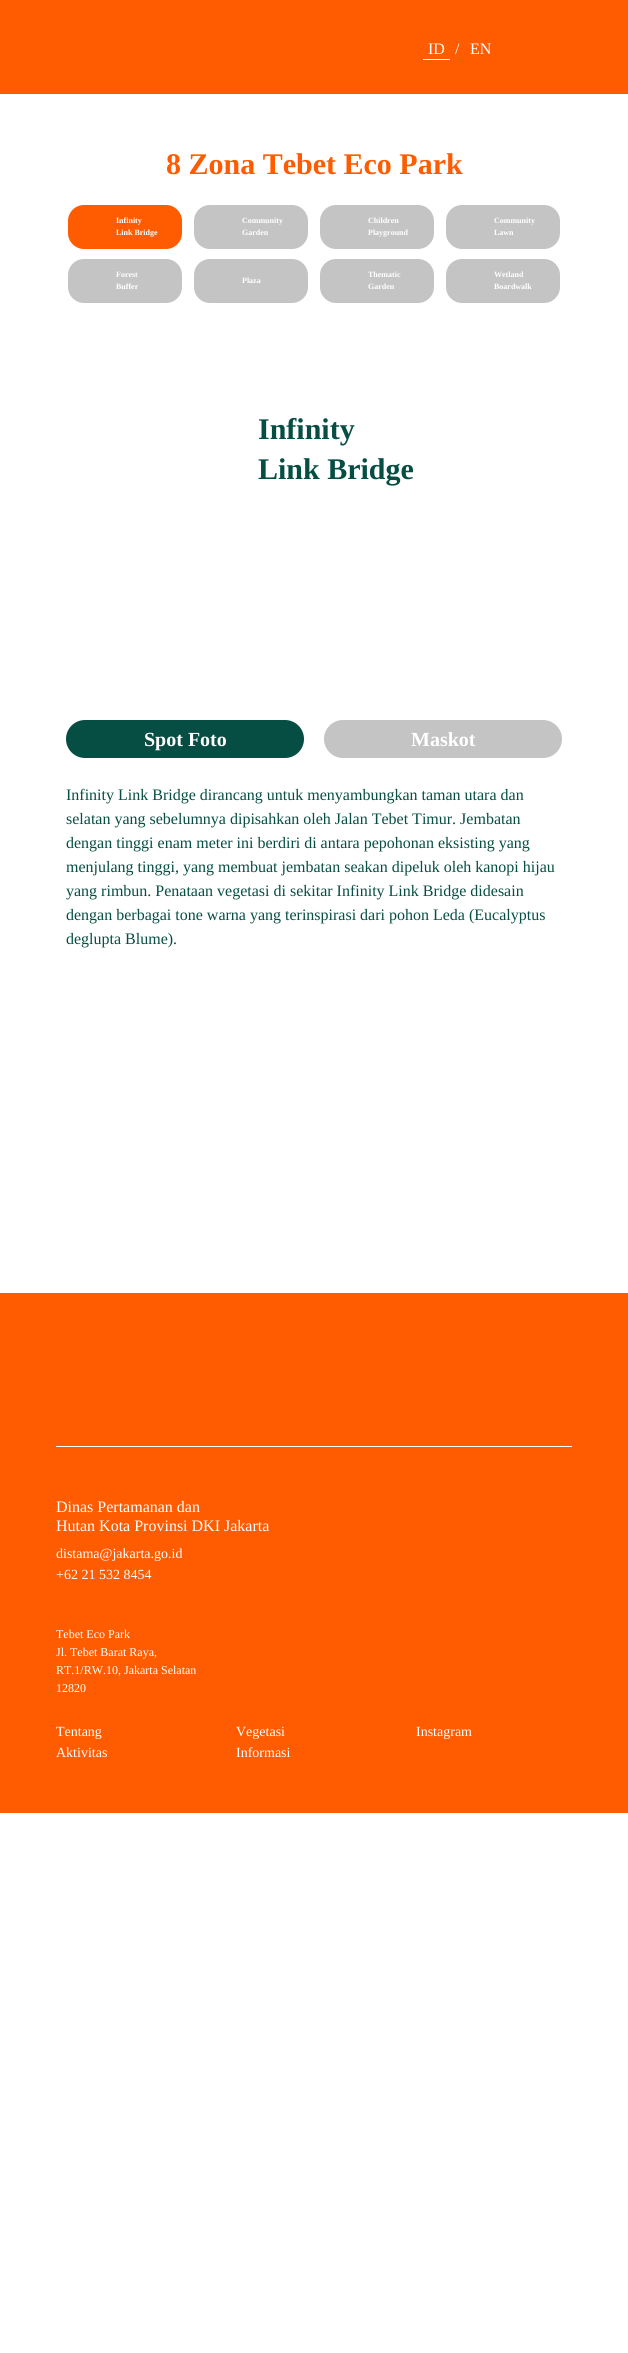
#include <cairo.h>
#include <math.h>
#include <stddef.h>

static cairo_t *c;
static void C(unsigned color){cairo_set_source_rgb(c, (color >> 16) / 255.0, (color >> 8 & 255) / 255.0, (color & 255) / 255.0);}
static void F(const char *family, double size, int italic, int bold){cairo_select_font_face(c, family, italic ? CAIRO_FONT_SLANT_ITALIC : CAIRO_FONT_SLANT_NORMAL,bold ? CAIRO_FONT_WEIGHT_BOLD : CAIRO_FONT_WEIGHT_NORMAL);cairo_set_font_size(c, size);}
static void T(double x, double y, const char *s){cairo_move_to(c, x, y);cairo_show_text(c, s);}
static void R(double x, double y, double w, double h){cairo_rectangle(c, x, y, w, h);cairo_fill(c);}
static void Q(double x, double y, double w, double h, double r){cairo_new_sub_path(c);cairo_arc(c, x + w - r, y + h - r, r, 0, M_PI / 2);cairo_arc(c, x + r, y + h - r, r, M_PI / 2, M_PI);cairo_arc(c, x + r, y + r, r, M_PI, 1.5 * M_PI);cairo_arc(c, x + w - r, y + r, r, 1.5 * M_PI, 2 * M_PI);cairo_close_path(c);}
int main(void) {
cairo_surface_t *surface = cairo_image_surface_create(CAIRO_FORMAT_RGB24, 628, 2353);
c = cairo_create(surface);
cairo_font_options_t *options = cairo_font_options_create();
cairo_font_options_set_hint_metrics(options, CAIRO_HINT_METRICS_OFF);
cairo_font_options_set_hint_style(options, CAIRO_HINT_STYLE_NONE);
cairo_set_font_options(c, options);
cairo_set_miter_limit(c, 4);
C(0xffffff);
cairo_paint(c);
C(0xff5b00);
R(0,0,628,94);
C(0xffffff);
R(423,59,27,1);
F("Liberation Serif",16,0,0);
T(428,54,"ID");
T(455,54,"/");
T(470,54,"EN");
F("Liberation Serif",30,0,1);
C(0xff5b00);
T(166,174,"8 Zona Tebet Eco Park");
Q(68,205,114,44,16);
cairo_fill(c);
F("Liberation Serif",8,0,1);
C(0xffffff);
T(116,223,"Infinity");
T(116,235,"Link Bridge");
C(0xc4c4c4);
Q(194,205,114,44,16);
cairo_fill(c);
C(0xffffff);
T(242,223,"Community");
T(242,235,"Garden");
C(0xc4c4c4);
Q(320,205,114,44,16);
cairo_fill(c);
C(0xffffff);
T(368,223,"Children");
T(368,235,"Playground");
C(0xc4c4c4);
Q(446,205,114,44,16);
cairo_fill(c);
C(0xffffff);
T(494,223,"Community");
T(494,235,"Lawn");
C(0xc4c4c4);
Q(68,259,114,44,16);
cairo_fill(c);
C(0xffffff);
T(116,277,"Forest");
T(116,289,"Buffer");
C(0xc4c4c4);
Q(194,259,114,44,16);
cairo_fill(c);
C(0xffffff);
T(242,283,"Plaza");
C(0xc4c4c4);
Q(320,259,114,44,16);
cairo_fill(c);
C(0xffffff);
T(368,277,"Thematic");
T(368,289,"Garden");
C(0xc4c4c4);
Q(446,259,114,44,16);
cairo_fill(c);
C(0xffffff);
T(494,277,"Wetland");
T(494,289,"Boardwalk");
F("Liberation Serif",30,0,1);
C(0x064e43);
T(258,439,"Infinity");
T(258,479,"Link Bridge");
Q(66,720,238,38,19);
cairo_fill(c);
F("Liberation Serif",20,0,1);
C(0xffffff);
T(144,746,"Spot Foto");
C(0xc4c4c4);
Q(324,720,238,38,19);
cairo_fill(c);
C(0xffffff);
T(411,746,"Maskot");
F("Liberation Serif",16,0,0);
C(0x064e43);
T(66,800,"Infinity Link Bridge dirancang untuk menyambungkan taman utara dan");
T(66,824,"selatan yang sebelumnya dipisahkan oleh Jalan Tebet Timur. Jembatan");
T(66,848,"dengan tinggi enam meter ini berdiri di antara pepohonan eksisting yang");
T(66,872,"menjulang tinggi, yang membuat jembatan seakan dipeluk oleh kanopi hijau");
T(66,896,"yang rimbun. Penataan vegetasi di sekitar Infinity Link Bridge didesain");
T(66,920,"dengan berbagai tone warna yang terinspirasi dari pohon Leda (Eucalyptus");
T(66,944,"deglupta Blume).");
C(0xff5b00);
R(0,1293,628,520);
C(0xffffff);
R(56,1446,516,1);
T(56,1512,"Dinas Pertamanan dan");
T(56,1531,"Hutan Kota Provinsi DKI Jakarta");
F("Liberation Serif",14,0,0);
T(56,1558,"distama@jakarta.go.id");
T(56,1579,"+62 21 532 8454");
F("Liberation Serif",12,0,0);
T(56,1638,"Tebet Eco Park");
T(56,1656,"Jl. Tebet Barat Raya,");
T(56,1674,"RT.1/RW.10, Jakarta Selatan");
T(56,1692,"12820");
F("Liberation Serif",14,0,0);
T(56,1736,"Tentang");
T(236,1736,"Vegetasi");
T(416,1736,"Instagram");
T(56,1757,"Aktivitas");
T(236,1757,"Informasi");
cairo_surface_write_to_png(surface, "o.png");
cairo_font_options_destroy(options);
cairo_destroy(c);
cairo_surface_destroy(surface);
return 0;
}
